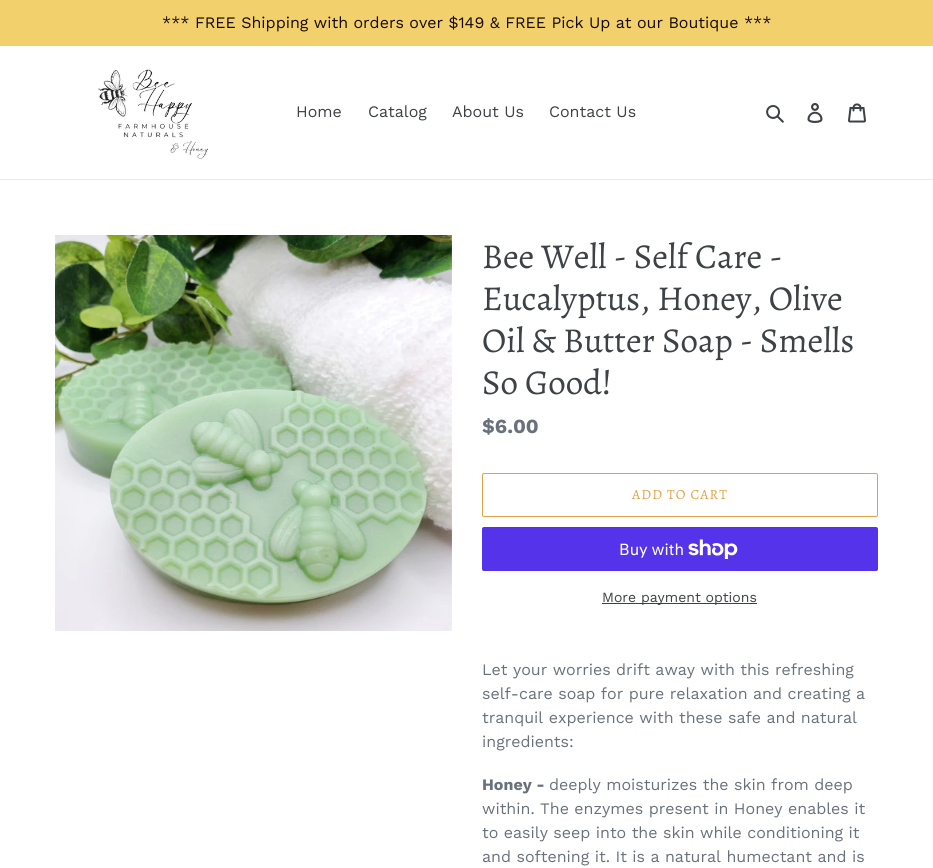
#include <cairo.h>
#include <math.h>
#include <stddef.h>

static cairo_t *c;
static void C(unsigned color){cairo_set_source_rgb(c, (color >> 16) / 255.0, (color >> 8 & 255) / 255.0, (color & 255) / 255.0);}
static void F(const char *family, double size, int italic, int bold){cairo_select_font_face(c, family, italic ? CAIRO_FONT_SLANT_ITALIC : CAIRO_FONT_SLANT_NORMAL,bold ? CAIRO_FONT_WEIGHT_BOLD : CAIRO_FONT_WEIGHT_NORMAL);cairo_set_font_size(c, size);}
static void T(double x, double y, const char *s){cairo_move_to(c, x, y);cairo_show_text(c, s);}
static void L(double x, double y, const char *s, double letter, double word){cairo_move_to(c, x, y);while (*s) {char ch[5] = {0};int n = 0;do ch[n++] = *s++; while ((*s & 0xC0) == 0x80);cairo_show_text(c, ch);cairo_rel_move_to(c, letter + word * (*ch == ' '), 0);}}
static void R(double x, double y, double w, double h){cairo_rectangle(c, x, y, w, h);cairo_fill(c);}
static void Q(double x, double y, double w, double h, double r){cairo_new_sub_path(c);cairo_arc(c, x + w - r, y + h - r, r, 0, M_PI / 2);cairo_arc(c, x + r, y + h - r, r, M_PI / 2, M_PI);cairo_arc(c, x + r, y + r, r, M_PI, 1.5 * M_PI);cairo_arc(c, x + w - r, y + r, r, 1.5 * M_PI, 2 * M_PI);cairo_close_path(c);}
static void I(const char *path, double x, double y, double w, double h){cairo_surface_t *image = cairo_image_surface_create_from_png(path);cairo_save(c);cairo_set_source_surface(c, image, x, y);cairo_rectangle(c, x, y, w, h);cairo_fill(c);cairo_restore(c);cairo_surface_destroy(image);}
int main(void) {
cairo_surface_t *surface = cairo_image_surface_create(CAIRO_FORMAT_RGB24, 933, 868);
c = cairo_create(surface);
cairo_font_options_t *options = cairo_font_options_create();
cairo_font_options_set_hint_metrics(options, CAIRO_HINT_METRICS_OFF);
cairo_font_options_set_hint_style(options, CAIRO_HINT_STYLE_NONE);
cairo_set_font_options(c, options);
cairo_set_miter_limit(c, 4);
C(0xffffff);
cairo_paint(c);
C(0xf2d16c);
R(0,0,933,46);
F("Work Sans",16,0,0);
C(0x160909);
T(162,28,"*** FREE Shipping with orders over $149 & FREE Pick Up at our Boutique ***");
C(0xe8e9eb);
R(0,179,933,1);
I("1.png",98,68,110,91);
C(0x3d4246);
T(296,117,"Home");
T(368,117,"Catalog");
T(452,117,"About Us");
T(549,117,"Contact Us");
I("2.png",766,105,18,18);
I("3.png",807,103,16,20);
I("4.png",848,103,18,20);
I("5.png",55,235,397,396);
F("Alegreya",35,0,0);
T(482,268,"Bee Well - Self Care -");
T(482,310,"Eucalyptus, Honey, Olive");
T(482,352,"Oil & Butter Soap - Smells");
T(482,394,"So Good!");
F("Work Sans",20,0,1);
C(0x69727b);
T(482,433,"$6.00");
Q(482.5,473.5,395,43,1.5);
C(0xe2a345);
cairo_set_line_width(c,1);
cairo_stroke(c);
F("Alegreya",14,0,0);
L(632,499,"ADD TO CART",1.1,0);
C(0x5433eb);
Q(482,527,396,44,2);
cairo_fill(c);
F("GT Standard",16,0,0);
C(0xffffff);
T(619,555,"Buy with");
I("6.png",688,539,50,20);
C(0x3d4246);
R(602,603,155,1);
F("Work Sans",14,0,0);
T(602,602,"More payment options");
F("Work Sans",16,0,0);
C(0x69727b);
T(482,675,"Let your worries drift away with this refreshing");
T(482,699,"self-care soap for pure relaxation and creating a");
T(482,723,"tranquil experience with these safe and natural");
T(482,747,"ingredients:");
F("Work Sans",16,0,1);
T(482,790,"Honey -");
F("Work Sans",16,0,0);
T(549,790,"deeply moisturizes the skin from deep");
T(482,814,"within. The enzymes present in Honey enables it");
T(482,838,"to easily seep into the skin while conditioning it");
T(482,862,"and softening it. It is a natural humectant and is");
cairo_surface_write_to_png(surface, "o.png");
cairo_font_options_destroy(options);
cairo_destroy(c);
cairo_surface_destroy(surface);
return 0;
}
